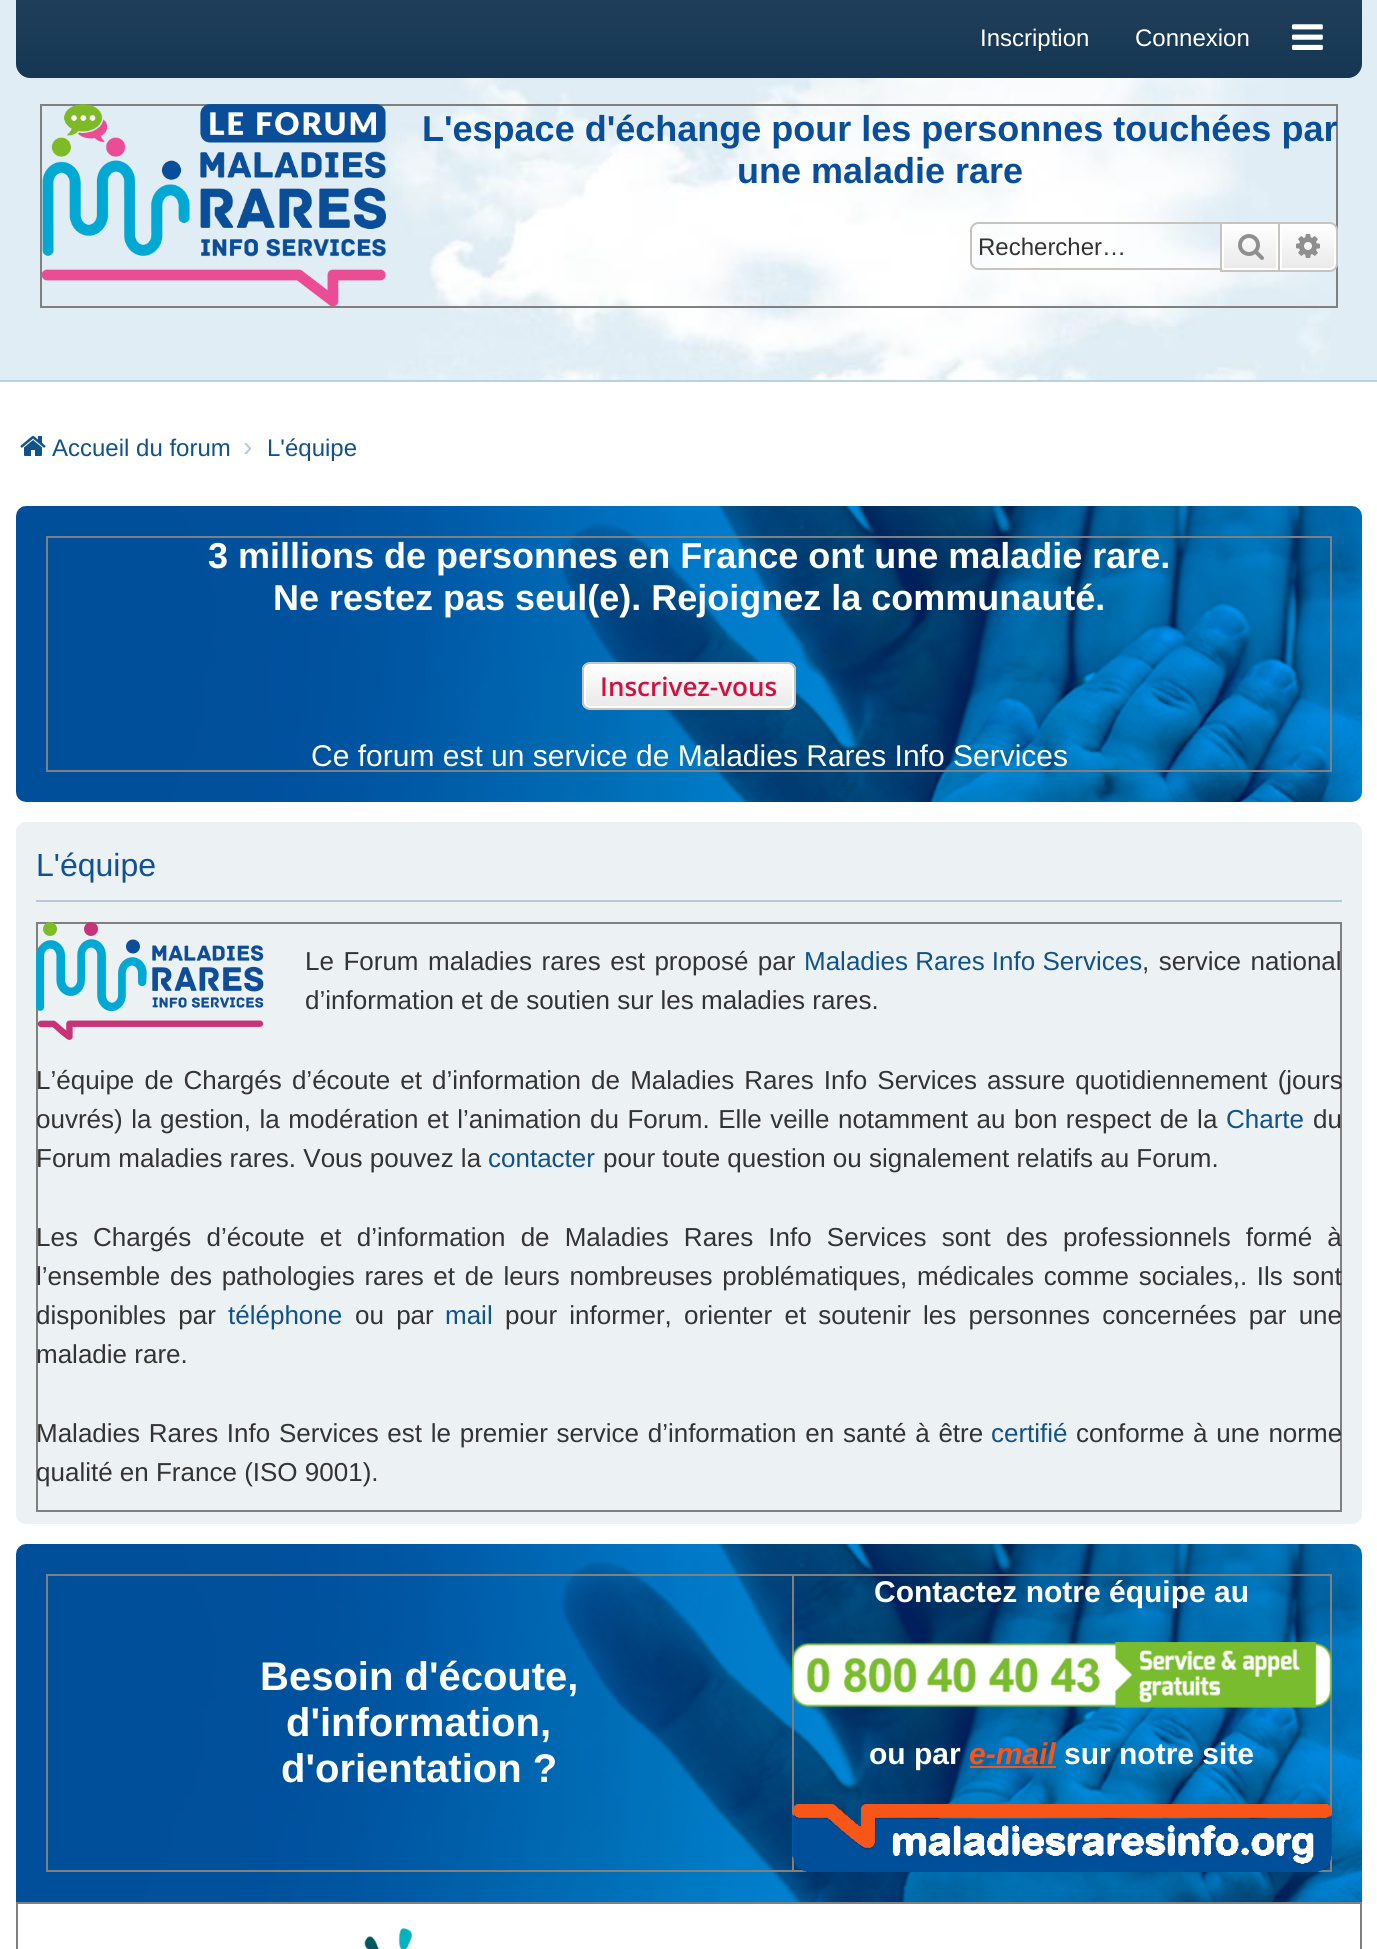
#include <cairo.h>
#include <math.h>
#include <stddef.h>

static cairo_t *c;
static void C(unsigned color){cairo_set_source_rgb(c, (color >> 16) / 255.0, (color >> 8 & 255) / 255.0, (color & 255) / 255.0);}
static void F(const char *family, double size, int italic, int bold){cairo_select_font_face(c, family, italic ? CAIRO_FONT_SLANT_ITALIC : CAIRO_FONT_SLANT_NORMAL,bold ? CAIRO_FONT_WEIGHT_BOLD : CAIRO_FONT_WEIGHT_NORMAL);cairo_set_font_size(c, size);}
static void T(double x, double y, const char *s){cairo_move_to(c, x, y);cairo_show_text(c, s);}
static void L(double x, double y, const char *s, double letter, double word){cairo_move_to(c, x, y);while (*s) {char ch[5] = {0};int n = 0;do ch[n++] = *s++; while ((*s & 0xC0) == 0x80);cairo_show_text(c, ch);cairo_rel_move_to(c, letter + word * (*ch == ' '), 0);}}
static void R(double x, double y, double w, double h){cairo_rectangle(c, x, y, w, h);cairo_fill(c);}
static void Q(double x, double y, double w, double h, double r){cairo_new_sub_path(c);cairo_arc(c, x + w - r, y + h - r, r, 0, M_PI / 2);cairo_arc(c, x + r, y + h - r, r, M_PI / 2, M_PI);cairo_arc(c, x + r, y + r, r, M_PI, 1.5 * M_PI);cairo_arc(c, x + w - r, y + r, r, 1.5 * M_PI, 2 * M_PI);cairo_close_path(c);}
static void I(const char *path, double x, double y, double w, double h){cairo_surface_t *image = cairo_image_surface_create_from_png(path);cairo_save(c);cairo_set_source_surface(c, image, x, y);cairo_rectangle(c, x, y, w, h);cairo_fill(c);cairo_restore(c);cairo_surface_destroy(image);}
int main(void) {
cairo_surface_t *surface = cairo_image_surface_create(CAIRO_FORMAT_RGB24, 1377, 1949);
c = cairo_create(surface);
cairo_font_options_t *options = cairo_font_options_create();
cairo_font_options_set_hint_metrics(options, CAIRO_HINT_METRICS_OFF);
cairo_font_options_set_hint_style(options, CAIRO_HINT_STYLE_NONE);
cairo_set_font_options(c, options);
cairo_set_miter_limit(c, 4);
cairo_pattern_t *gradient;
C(0xffffff);
cairo_paint(c);
C(0xe0edf4);
R(0,0,1377,380);
gradient = cairo_pattern_create_linear(689,0,689,78);
cairo_pattern_add_color_stop_rgba(gradient,0,0.122,0.243,0.349,1);
cairo_pattern_add_color_stop_rgba(gradient,1,0.082,0.216,0.325,1);
cairo_set_source(c,gradient);
cairo_pattern_destroy(gradient);
cairo_new_path(c);
cairo_move_to(c,16,0);
cairo_line_to(c,1362,0);
cairo_line_to(c,1362,64);
cairo_curve_to(c,1362,71.5,1355.5,78,1348,78);
cairo_line_to(c,30,78);
cairo_curve_to(c,22.5,78,16,71.5,16,64);
cairo_close_path(c);
cairo_fill(c);
F("Liberation Sans",24,0,0);
C(0xffffff);
T(980,46,"Inscription");
T(1135,46,"Connexion");
I("1.png",1292,24,31,26);
C(0xbad1de);
R(0,380,1377,2);
I("2.png",388,78,942,302);
C(0x808080);
R(40,104,1298,2);
R(1336,104,2,204);
R(40,306,1298,2);
R(40,104,2,204);
I("3.png",41,104,345,203);
F("Liberation Sans",36,0,1);
C(0x0a4d98);
T(422,141,"L'espace d'échange pour les personnes touchées par");
T(737,183,"une maladie rare");
C(0xc7c3bf);
cairo_set_fill_rule(c,CAIRO_FILL_RULE_EVEN_ODD);
cairo_new_path(c);
cairo_move_to(c,978,222);
cairo_line_to(c,1220,222);
cairo_line_to(c,1220,270);
cairo_line_to(c,978,270);
cairo_curve_to(c,974,270,970,266,970,262);
cairo_line_to(c,970,230);
cairo_curve_to(c,970,226,974,222,978,222);
cairo_close_path(c);
cairo_move_to(c,978,224);
cairo_line_to(c,1220,224);
cairo_line_to(c,1220,268);
cairo_line_to(c,978,268);
cairo_curve_to(c,975,268,972,265,972,262);
cairo_line_to(c,972,230);
cairo_curve_to(c,972,227,975,224,978,224);
cairo_close_path(c);
cairo_fill(c);
F("Liberation Sans",24,0,0);
C(0x333333);
T(978,255,"Rechercher…");
gradient = cairo_pattern_create_linear(1250,224,1250,270);
cairo_pattern_add_color_stop_rgba(gradient,0,1,1,1,1);
cairo_pattern_add_color_stop_rgba(gradient,1,0.914,0.914,0.914,1);
cairo_set_source(c,gradient);
cairo_pattern_destroy(gradient);
R(1224,226,52,42);
cairo_rectangle(c,1223,225,54,44);
C(0xffffff);
cairo_stroke(c);
cairo_rectangle(c,1221,223,58,48);
C(0xc7c3bf);
cairo_stroke(c);
I("4.png",1238,234,26,26);
gradient = cairo_pattern_create_linear(1308,224,1308,270);
cairo_pattern_add_color_stop_rgba(gradient,0,1,1,1,1);
cairo_pattern_add_color_stop_rgba(gradient,1,0.914,0.914,0.914,1);
cairo_set_source(c,gradient);
cairo_pattern_destroy(gradient);
cairo_new_path(c);
cairo_move_to(c,1281,225);
cairo_line_to(c,1330,225);
cairo_curve_to(c,1333,225,1335,227,1335,230);
cairo_line_to(c,1335,264);
cairo_curve_to(c,1335,267,1333,269,1330,269);
cairo_line_to(c,1281,269);
cairo_close_path(c);
cairo_fill_preserve(c);
C(0xffffff);
cairo_stroke(c);
C(0xc7c3bf);
cairo_new_path(c);
cairo_move_to(c,1280,222);
cairo_line_to(c,1330,222);
cairo_curve_to(c,1334,222,1338,226,1338,230);
cairo_line_to(c,1338,264);
cairo_curve_to(c,1338,268,1334,272,1330,272);
cairo_line_to(c,1280,272);
cairo_close_path(c);
cairo_move_to(c,1280,224);
cairo_line_to(c,1330,224);
cairo_curve_to(c,1333,224,1336,227,1336,230);
cairo_line_to(c,1336,264);
cairo_curve_to(c,1336,267,1333,270,1330,270);
cairo_line_to(c,1280,270);
cairo_close_path(c);
cairo_fill(c);
I("5.png",1296,234,24,24);
I("6.png",20,436,26,20);
C(0x105289);
T(52,456,"Accueil du forum");
F("Liberation Sans",28,0,0);
C(0xb7c9d7);
T(243,456,"›");
F("Liberation Sans",24,0,0);
C(0x105289);
T(267,456,"L'équipe");
C(0xecf1f3);
Q(16,506,1346,296,10);
cairo_fill(c);
I("7.png",16,506,1346,296);
C(0x808080);
R(46,536,1286,2);
R(1330,536,2,236);
R(46,770,1286,2);
R(46,536,2,236);
F("Liberation Sans",36,0,1);
C(0xffffff);
T(208,568,"3 millions de personnes en France ont une maladie rare.");
T(273,610,"Ne restez pas seul(e). Rejoignez la communauté.");
cairo_save(c);
cairo_set_fill_rule(c,CAIRO_FILL_RULE_WINDING);
Q(582,662,214,48,8);
cairo_clip(c);
gradient = cairo_pattern_create_linear(689,664,689,708);
cairo_pattern_add_color_stop_rgba(gradient,0,1,1,1,1);
cairo_pattern_add_color_stop_rgba(gradient,1,0.914,0.914,0.914,1);
cairo_set_source(c,gradient);
cairo_pattern_destroy(gradient);
R(582,664,214,44);
cairo_restore(c);
Q(585,665,208,42,5);
cairo_stroke(c);
Q(583,663,212,46,7);
C(0xc7c3bf);
cairo_stroke(c);
F("Open Sans SemiBold",26,0,0);
C(0xd31141);
T(600,696,"Inscrivez-vous");
F("Liberation Sans",30,0,0);
C(0xffffff);
T(311,766,"Ce forum est un service de Maladies Rares Info Services");
C(0xecf1f3);
Q(16,822,1346,702,10);
cairo_fill(c);
C(0xb7c9d7);
R(36,900,1306,2);
F("Liberation Sans",32,0,0);
C(0x115098);
T(36,876,"L'équipe");
C(0x808080);
R(36,922,1306,2);
R(1340,922,2,590);
R(36,1510,1306,2);
R(36,922,2,590);
I("8.png",36,922,228,118);
F("Liberation Sans",26,0,0);
C(0x333333);
L(305,970,"Le Forum maladies rares est proposé par",0,2.25);
C(0x105289);
T(804,970,"Maladies Rares Info Services");
C(0x333333);
L(1142,970,", service national",0,2.25);
T(305,1009,"d’information et de soutien sur les maladies rares.");
L(36,1089,"L’équipe de Chargés d’écoute et d’information de Maladies Rares Info Services assure quotidiennement (jours",0,2.9);
L(36,1128,"ouvrés) la gestion, la modération et l’animation du Forum. Elle veille notamment au bon respect de la",0,1.3);
C(0x105289);
T(1226,1128,"Charte");
C(0x333333);
T(1313,1128,"du");
T(36,1167,"Forum maladies rares. Vous pouvez la");
C(0x105289);
T(488,1167,"contacter");
C(0x333333);
T(603,1167,"pour toute question ou signalement relatifs au Forum.");
L(36,1246,"Les Chargés d’écoute et d’information de Maladies Rares Info Services sont des professionnels formé à",0,7.9);
L(36,1285,"l’ensemble des pathologies rares et de leurs nombreuses problématiques, médicales comme sociales,. Ils sont",0,2.5);
L(36,1324,"disponibles par",0,5);
C(0x105289);
T(228,1324,"téléphone");
C(0x333333);
L(355,1324,"ou par",0,5);
C(0x105289);
T(445,1324,"mail");
C(0x333333);
L(505,1324,"pour informer, orienter et soutenir les personnes concernées par une",0,5);
T(36,1363,"maladie rare.");
L(36,1442,"Maladies Rares Info Services est le premier service d’information en santé à être",0,1.5);
C(0x105289);
T(991,1442,"certifié");
C(0x333333);
L(1076,1442,"conforme à une norme",0,1.5);
T(36,1481,"qualité en France (ISO 9001).");
C(0xecf1f3);
Q(16,1544,1346,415,10);
cairo_fill(c);
I("9.png",16,1544,1346,358);
C(0x808080);
R(1330,1574,2,298);
R(792,1574,2,298);
R(46,1574,1286,2);
R(46,1870,1286,2);
R(46,1574,2,298);
F("Liberation Sans",40,0,1);
C(0xffffff);
T(260,1690,"Besoin d'écoute,");
T(286,1736,"d'information,");
T(281,1782,"d'orientation ?");
F("Liberation Sans",30,0,1);
T(874,1602,"Contactez notre équipe au");
I("10.png",792,1642,540,66);
T(869,1764,"ou par");
F("Liberation Sans",30,1,1);
C(0xf85519);
T(969,1764,"e-mail");
R(970,1766,86,2);
F("Liberation Sans",30,0,1);
C(0xffffff);
T(1064,1764,"sur notre site");
I("11.png",792,1804,540,68);
R(18,1904,1342,45);
C(0x808080);
R(16,1902,1346,2);
R(1360,1902,2,47);
R(16,1902,2,47);
I("12.png",364,1928,48,21);
cairo_surface_write_to_png(surface, "o.png");
cairo_font_options_destroy(options);
cairo_destroy(c);
cairo_surface_destroy(surface);
return 0;
}
